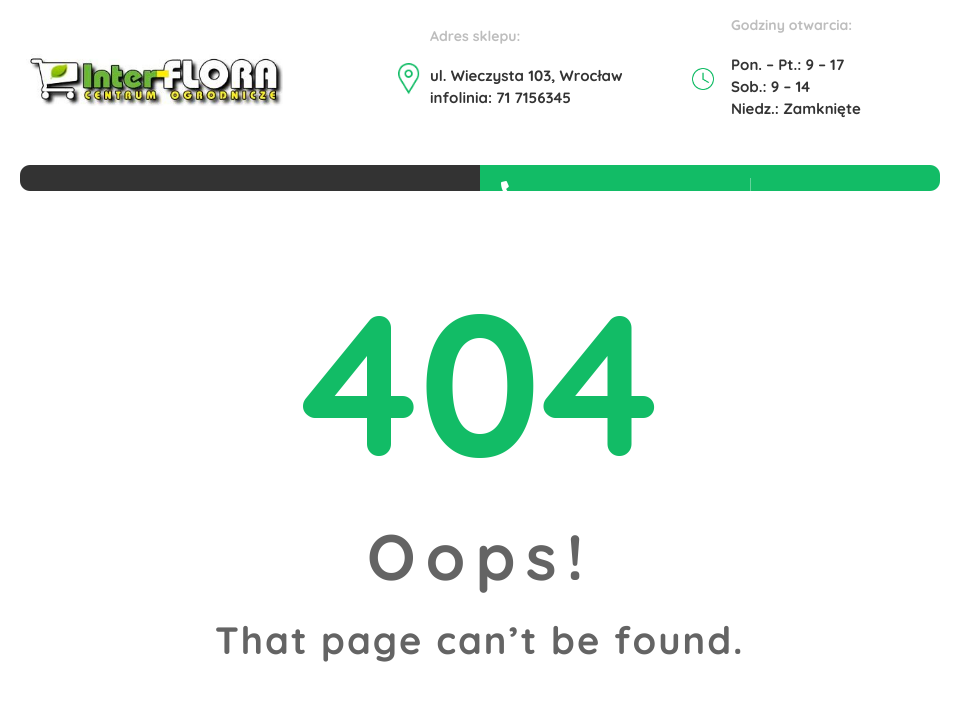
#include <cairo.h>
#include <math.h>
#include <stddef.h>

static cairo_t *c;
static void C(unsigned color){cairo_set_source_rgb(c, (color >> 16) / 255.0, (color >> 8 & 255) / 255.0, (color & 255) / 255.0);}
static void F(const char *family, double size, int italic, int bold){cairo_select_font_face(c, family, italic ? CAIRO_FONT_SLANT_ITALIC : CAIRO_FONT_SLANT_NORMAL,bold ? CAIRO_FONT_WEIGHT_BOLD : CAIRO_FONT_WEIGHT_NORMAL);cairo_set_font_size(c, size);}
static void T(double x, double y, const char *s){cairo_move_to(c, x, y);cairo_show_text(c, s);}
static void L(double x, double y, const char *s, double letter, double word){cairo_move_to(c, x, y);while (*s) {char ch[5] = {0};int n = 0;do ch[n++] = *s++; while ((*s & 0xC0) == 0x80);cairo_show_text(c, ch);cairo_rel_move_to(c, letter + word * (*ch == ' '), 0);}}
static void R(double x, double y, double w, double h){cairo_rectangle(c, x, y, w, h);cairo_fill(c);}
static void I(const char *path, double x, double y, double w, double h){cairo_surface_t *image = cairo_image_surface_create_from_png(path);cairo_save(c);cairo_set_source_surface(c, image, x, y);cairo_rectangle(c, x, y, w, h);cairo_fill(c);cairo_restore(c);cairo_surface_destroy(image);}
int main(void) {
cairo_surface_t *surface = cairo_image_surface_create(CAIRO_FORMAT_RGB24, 960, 714);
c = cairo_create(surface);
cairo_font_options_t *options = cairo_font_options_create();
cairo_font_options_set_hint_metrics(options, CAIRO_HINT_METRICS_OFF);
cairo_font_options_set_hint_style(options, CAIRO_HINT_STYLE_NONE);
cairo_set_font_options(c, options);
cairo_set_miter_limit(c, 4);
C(0xffffff);
cairo_paint(c);
I("1.png",26,54,257,52);
I("2.png",398,63,22,32);
F("Quicksand",14,0,1);
C(0xbdbdbd);
T(430,41,"Adres sklepu:");
F("Quicksand",15,0,1);
C(0x333333);
T(430,81,"ul. Wieczysta 103, Wrocław");
T(430,103,"infolinia: 71 7156345");
I("3.png",692,68,22,22);
F("Quicksand",14,0,1);
C(0xbdbdbd);
T(731,30,"Godziny otwarcia:");
F("Quicksand",15,0,1);
C(0x333333);
T(731,70,"Pon. – Pt.: 9 – 17");
T(731,92,"Sob.: 9 – 14");
T(731,114,"Niedz.: Zamknięte");
cairo_new_path(c);
cairo_move_to(c,30,165);
cairo_line_to(c,480,165);
cairo_line_to(c,480,191);
cairo_line_to(c,30,191);
cairo_curve_to(c,24.5,191,20,186.5,20,181);
cairo_line_to(c,20,175);
cairo_curve_to(c,20,169.5,24.5,165,30,165);
cairo_close_path(c);
cairo_fill(c);
C(0x12bc66);
cairo_new_path(c);
cairo_move_to(c,480,165);
cairo_line_to(c,930,165);
cairo_curve_to(c,935.5,165,940,169.5,940,175);
cairo_line_to(c,940,181);
cairo_curve_to(c,940,186.5,935.5,191,930,191);
cairo_line_to(c,480,191);
cairo_close_path(c);
cairo_fill(c);
C(0x65d39c);
R(750,178,1,13);
I("4.png",501,181,8,10);
F("Quicksand",200,0,1);
C(0x12bc66);
T(301,456,"404");
F("Quicksand",64,0,1);
C(0x646464);
L(367,580,"Oops!",10,0);
F("Quicksand",38,0,1);
L(215,654,"That page can’t be found.",2,0);
cairo_surface_write_to_png(surface, "o.png");
cairo_font_options_destroy(options);
cairo_destroy(c);
cairo_surface_destroy(surface);
return 0;
}
